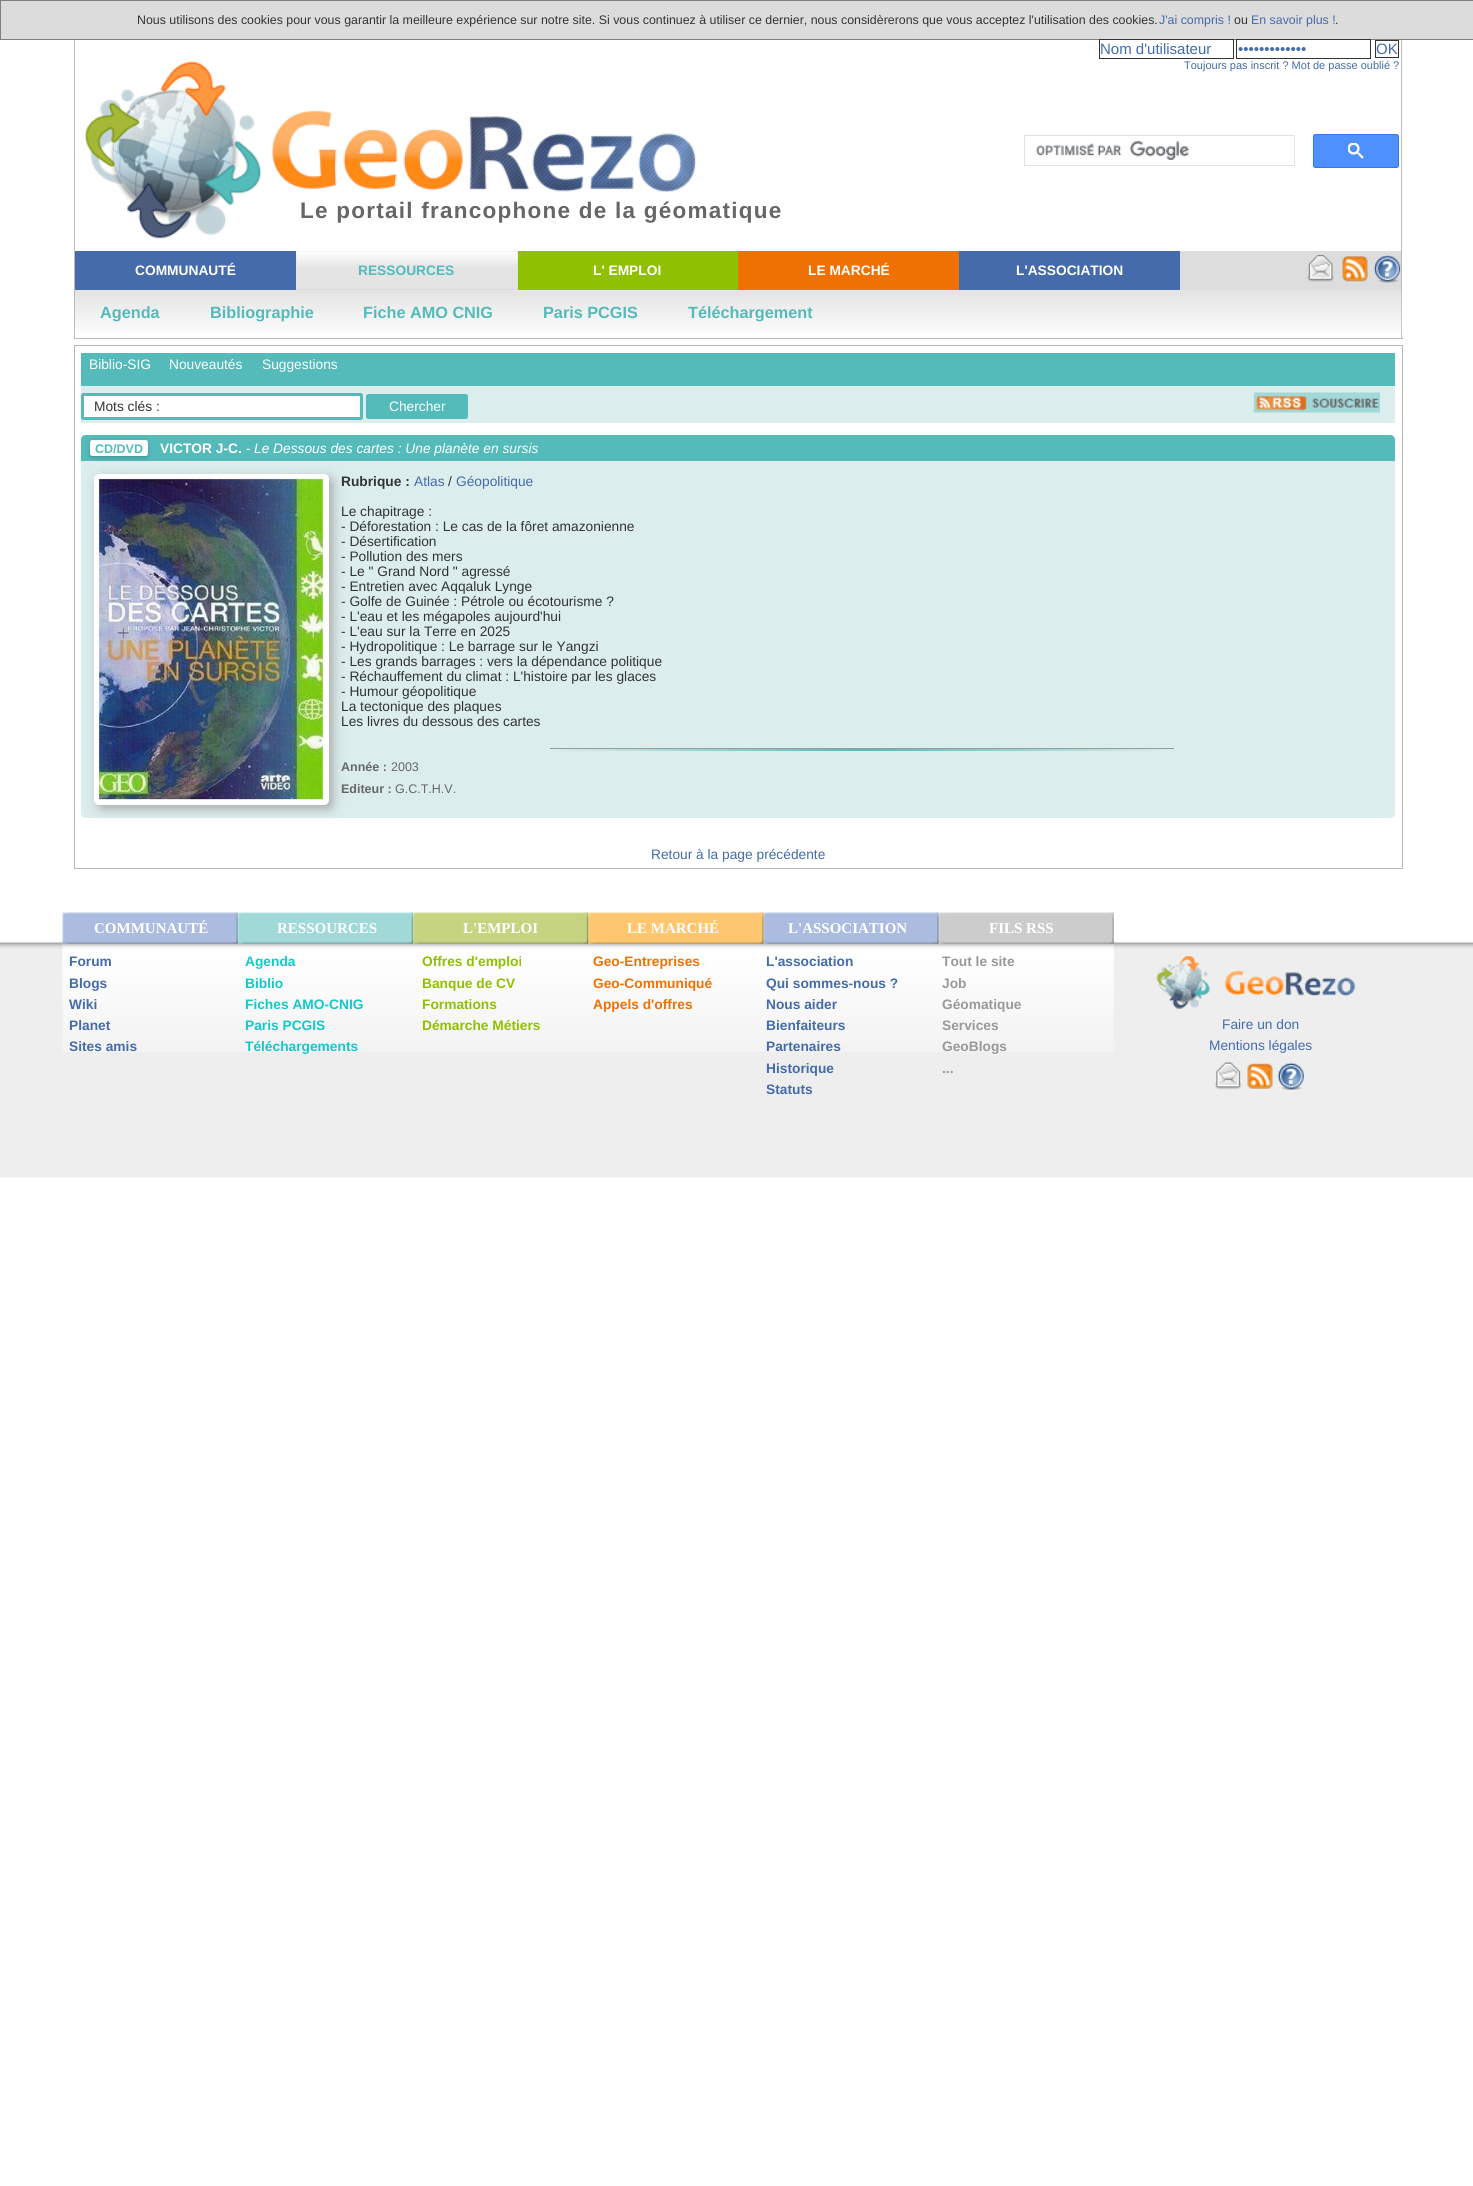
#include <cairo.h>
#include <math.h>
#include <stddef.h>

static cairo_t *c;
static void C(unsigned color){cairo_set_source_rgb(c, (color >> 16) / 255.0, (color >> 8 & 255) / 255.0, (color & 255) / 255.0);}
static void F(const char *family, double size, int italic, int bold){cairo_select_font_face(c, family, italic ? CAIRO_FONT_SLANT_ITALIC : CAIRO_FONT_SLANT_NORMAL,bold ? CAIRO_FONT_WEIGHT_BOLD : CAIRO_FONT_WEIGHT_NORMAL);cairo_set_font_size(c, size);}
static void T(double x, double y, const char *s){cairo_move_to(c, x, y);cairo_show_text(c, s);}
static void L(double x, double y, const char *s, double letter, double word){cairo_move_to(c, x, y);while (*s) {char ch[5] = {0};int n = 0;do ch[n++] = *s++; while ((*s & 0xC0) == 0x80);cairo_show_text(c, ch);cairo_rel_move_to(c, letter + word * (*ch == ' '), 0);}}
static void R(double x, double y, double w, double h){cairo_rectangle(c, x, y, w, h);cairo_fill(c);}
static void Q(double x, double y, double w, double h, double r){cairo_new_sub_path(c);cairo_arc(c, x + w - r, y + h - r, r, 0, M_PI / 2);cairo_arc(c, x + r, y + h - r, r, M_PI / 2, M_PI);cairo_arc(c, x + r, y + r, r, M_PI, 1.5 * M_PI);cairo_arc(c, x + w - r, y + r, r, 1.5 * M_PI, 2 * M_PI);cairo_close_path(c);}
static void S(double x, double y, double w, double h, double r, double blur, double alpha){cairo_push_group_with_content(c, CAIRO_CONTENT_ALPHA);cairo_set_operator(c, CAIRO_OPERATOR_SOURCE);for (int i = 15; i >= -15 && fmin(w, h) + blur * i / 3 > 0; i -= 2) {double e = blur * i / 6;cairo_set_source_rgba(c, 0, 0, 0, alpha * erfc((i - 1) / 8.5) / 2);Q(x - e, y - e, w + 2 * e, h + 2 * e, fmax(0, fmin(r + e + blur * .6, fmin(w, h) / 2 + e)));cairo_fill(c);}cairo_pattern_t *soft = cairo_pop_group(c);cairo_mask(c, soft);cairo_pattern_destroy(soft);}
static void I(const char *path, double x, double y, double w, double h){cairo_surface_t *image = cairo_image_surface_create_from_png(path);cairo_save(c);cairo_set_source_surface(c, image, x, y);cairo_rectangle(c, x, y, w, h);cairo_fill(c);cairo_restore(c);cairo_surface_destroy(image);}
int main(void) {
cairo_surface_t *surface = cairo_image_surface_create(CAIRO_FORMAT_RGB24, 1473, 2186);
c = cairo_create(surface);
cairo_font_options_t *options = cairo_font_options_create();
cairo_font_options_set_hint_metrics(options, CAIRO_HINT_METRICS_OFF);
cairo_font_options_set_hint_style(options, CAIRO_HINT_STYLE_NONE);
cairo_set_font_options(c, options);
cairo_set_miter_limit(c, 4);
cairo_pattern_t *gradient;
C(0xffffff);
cairo_paint(c);
C(0xdcdcdc);
cairo_rectangle(c,.5,.5,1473,39);
cairo_fill_preserve(c);
C(0x808080);
cairo_set_line_width(c,1);
cairo_stroke(c);
F("Liberation Sans",12.38,0,0);
C(0x333333);
T(137,24,"Nous utilisons des cookies pour vous garantir la meilleure expérience sur notre site. Si vous continuez à utiliser ce dernier, nous considèrerons que vous acceptez l'utilisation des cookies.");
C(0x446baa);
T(1159,24,"J'ai compris !");
C(0x333333);
T(1234,24,"ou");
C(0x446baa);
T(1251,24,"En savoir plus !");
C(0x333333);
T(1335,24,".");
C(0xbbbbbb);
R(1401,40,1,299);
R(74,338,1329,1);
R(74,40,1,299);
cairo_rectangle(c,1099.5,39.5,134,19);
C(0x333333);
cairo_stroke(c);
F("Liberation Sans",15,0,0);
C(0x446baa);
T(1100,54,"Nom d'utilisateur");
cairo_rectangle(c,1236.5,39.5,134,19);
C(0x333333);
cairo_stroke(c);
C(0x446baa);
T(1238,54,"•••••••••••••");
cairo_rectangle(c,1375.5,40.5,23,17);
C(0x333333);
cairo_stroke(c);
C(0x446baa);
T(1376,54,"OK");
F("Liberation Sans",11,0,0);
T(1184,69,"Toujours pas inscrit ? Mot de passe oublié ?");
cairo_rectangle(c,1024.5,135.5,270,30);
C(0xdfe1e5);
cairo_stroke(c);
I("1.png",1036,141,153,19);
C(0x4d90fe);
Q(1313.5,134.5,85,33,2);
cairo_fill_preserve(c);
C(0x3079ed);
cairo_stroke(c);
I("2.png",1348,143,16,16);
I("3.png",85,61,611,178);
F("Liberation Sans",22.5,0,1);
C(0x666666);
L(300,218,"Le portail francophone de la géomatique",1.25,0);
C(0xdddddd);
R(296,251,1105,39);
C(0x456baa);
R(75,251,221,39);
F("Liberation Sans",13.75,0,1);
C(0xffffff);
T(135,275,"COMMUNAUTÉ");
I("4.png",296,251,222,38);
C(0x54baba);
T(358,275,"RESSOURCES");
C(0x8fc002);
R(518,251,220,39);
C(0xffffff);
T(593,275,"L' EMPLOI");
C(0xef7103);
R(738,251,221,39);
C(0xffffff);
T(808,275,"LE MARCHÉ");
C(0x456baa);
R(959,251,221,39);
C(0xffffff);
T(1016,275,"L'ASSOCIATION");
I("5.png",1307,255,27,27);
I("6.png",1342,256,26,26);
I("7.png",1373,255,28,28);
I("8.png",75,290,1327,44);
F("Liberation Sans",16.25,0,1);
C(0x54baba);
T(100,318,"Agenda");
T(210,318,"Bibliographie");
T(363,318,"Fiche AMO CNIG");
T(543,318,"Paris PCGIS");
T(688,318,"Téléchargement");
cairo_rectangle(c,74.5,345.5,1328,523);
C(0xb7b6b6);
cairo_stroke(c);
C(0xdceded);
R(81,386,1314,37);
C(0x54baba);
R(81,353,1314,33);
F("Liberation Sans",13.75,0,0);
C(0xffffff);
T(89,369,"Biblio-SIG");
T(169,369,"Nouveautés");
T(262,369,"Suggestions");
Q(82.5,394.5,279,24,1);
cairo_fill_preserve(c);
C(0x54baba);
cairo_set_line_width(c,3);
cairo_stroke(c);
C(0x333333);
T(94,411,"Mots clés :");
C(0x54baba);
Q(366,394,102,25,2.5);
cairo_fill(c);
C(0xffffff);
T(389,411,"Chercher");
I("9.png",1253,392,127,21);
C(0xdceded);
Q(81,435,1314,383,5);
cairo_fill(c);
C(0x54baba);
cairo_new_path(c);
cairo_move_to(c,86,435);
cairo_line_to(c,1390,435);
cairo_curve_to(c,1393,435,1395,437,1395,440);
cairo_line_to(c,1395,461);
cairo_line_to(c,81,461);
cairo_line_to(c,81,440);
cairo_curve_to(c,81,437,83,435,86,435);
cairo_close_path(c);
cairo_fill(c);
C(0x000000);
S(90,441,58,17,2.5,2,.2);
C(0xffffff);
Q(90,440,58,16,2.5);
cairo_fill(c);
F("Liberation Sans",12.5,0,1);
C(0x54baba);
T(95,453,"CD/DVD");
F("Liberation Sans",13.75,0,1);
C(0xffffff);
T(160,453,"VICTOR J-C.");
F("Liberation Sans",13.75,0,0);
T(246,453,"-");
F("Liberation Sans",13.75,1,0);
T(254,453,"Le Dessous des cartes : Une planète en sursis");
C(0xaaaaaa);
S(98,478,235,331,5,5.5,1);
C(0xffffff);
Q(94,474,235,331,5);
cairo_fill(c);
I("10.png",98,478,226,322);
F("Liberation Sans",13.75,0,1);
C(0x333333);
T(341,486,"Rubrique :");
F("Liberation Sans",13.75,0,0);
C(0x446baa);
T(414,486,"Atlas");
C(0x333333);
T(448,486,"/");
C(0x446baa);
T(456,486,"Géopolitique");
C(0x333333);
T(341,516,"Le chapitrage :");
T(341,531,"- Déforestation : Le cas de la fôret amazonienne");
T(341,546,"- Désertification");
T(341,561,"- Pollution des mers");
T(341,576,"- Le \" Grand Nord \" agressé");
T(341,591,"- Entretien avec Aqqaluk Lynge");
T(341,606,"- Golfe de Guinée : Pétrole ou écotourisme ?");
T(341,621,"- L'eau et les mégapoles aujourd'hui");
T(341,636,"- L'eau sur la Terre en 2025");
T(341,651,"- Hydropolitique : Le barrage sur le Yangzi");
T(341,666,"- Les grands barrages : vers la dépendance politique");
T(341,681,"- Réchauffement du climat : L'histoire par les glaces");
T(341,696,"- Humour géopolitique");
T(341,711,"La tectonique des plaques");
T(341,726,"Les livres du dessous des cartes");
gradient = cairo_pattern_create_linear(550,749,1174,749);
cairo_pattern_add_color_stop_rgba(gradient,0,0.863,0.929,0.929,1);
cairo_pattern_add_color_stop_rgba(gradient,.5,0.329,0.729,0.729,1);
cairo_pattern_add_color_stop_rgba(gradient,1,0.863,0.929,0.929,1);
cairo_set_source(c,gradient);
cairo_pattern_destroy(gradient);
R(550,749,624,2);
C(0x999999);
R(550,748,624,1);
F("Liberation Sans",12.5,0,1);
C(0x666666);
T(341,771,"Année :");
F("Liberation Sans",12.5,0,0);
T(391,771,"2003");
F("Liberation Sans",12.5,0,1);
T(341,793,"Editeur :");
F("Liberation Sans",12.5,0,0);
T(395,793,"G.C.T.H.V.");
F("Liberation Sans",13.75,0,0);
C(0x446baa);
T(651,859,"Retour à la page précédente");
I("11.png",0,942,1473,236);
I("12.png",62,912,1052,140);
F("Liberation Serif",15,0,1);
C(0xffffff);
T(94,933,"COMMUNAUTÉ");
T(277,933,"RESSOURCES");
T(463,933,"L'EMPLOI");
T(627,933,"LE MARCHÉ");
T(788,933,"L'ASSOCIATION");
T(989,933,"FILS RSS");
F("Liberation Sans",13.75,0,1);
C(0x446baa);
T(69,966,"Forum");
T(69,988,"Blogs");
T(69,1009,"Wiki");
T(69,1030,"Planet");
T(69,1051,"Sites amis");
C(0x13c8ca);
T(245,966,"Agenda");
T(245,988,"Biblio");
T(245,1009,"Fiches AMO-CNIG");
T(245,1030,"Paris PCGIS");
T(245,1051,"Téléchargements");
C(0x8fc002);
T(422,966,"Offres d'emploi");
T(422,988,"Banque de CV");
T(422,1009,"Formations");
T(422,1030,"Démarche Métiers");
C(0xef7103);
T(593,966,"Geo-Entreprises");
T(593,988,"Geo-Communiqué");
T(593,1009,"Appels d'offres");
C(0x446baa);
T(766,966,"L'association");
T(766,988,"Qui sommes-nous ?");
T(766,1009,"Nous aider");
T(766,1030,"Bienfaiteurs");
T(766,1051,"Partenaires");
T(766,1073,"Historique");
T(766,1094,"Statuts");
C(0x999999);
T(942,966,"Tout le site");
T(942,988,"Job");
T(942,1009,"Géomatique");
T(942,1030,"Services");
T(942,1051,"GeoBlogs");
T(942,1073,"...");
I("13.png",1156,956,200,53);
F("Liberation Sans",13.75,0,0);
C(0x446baa);
T(1222,1029,"Faire un don");
T(1209,1050,"Mentions légales");
I("14.png",1215,1062,27,28);
I("15.png",1247,1063,26,26);
I("16.png",1277,1062,27,28);
cairo_surface_write_to_png(surface, "o.png");
cairo_font_options_destroy(options);
cairo_destroy(c);
cairo_surface_destroy(surface);
return 0;
}
